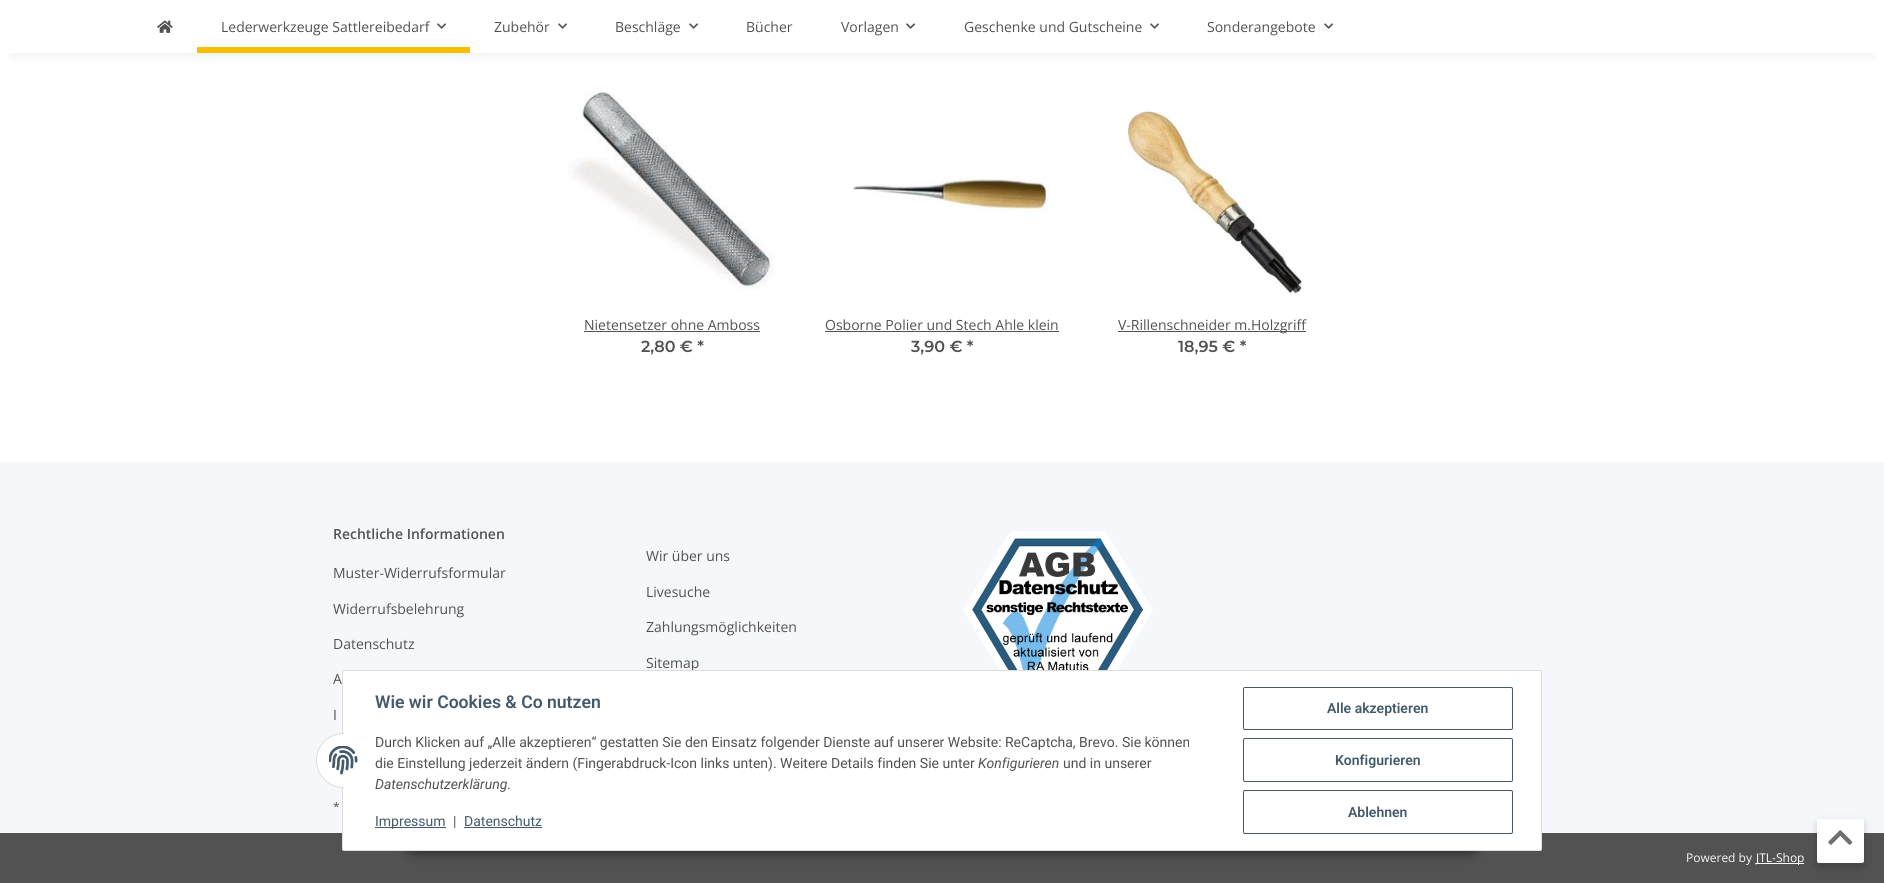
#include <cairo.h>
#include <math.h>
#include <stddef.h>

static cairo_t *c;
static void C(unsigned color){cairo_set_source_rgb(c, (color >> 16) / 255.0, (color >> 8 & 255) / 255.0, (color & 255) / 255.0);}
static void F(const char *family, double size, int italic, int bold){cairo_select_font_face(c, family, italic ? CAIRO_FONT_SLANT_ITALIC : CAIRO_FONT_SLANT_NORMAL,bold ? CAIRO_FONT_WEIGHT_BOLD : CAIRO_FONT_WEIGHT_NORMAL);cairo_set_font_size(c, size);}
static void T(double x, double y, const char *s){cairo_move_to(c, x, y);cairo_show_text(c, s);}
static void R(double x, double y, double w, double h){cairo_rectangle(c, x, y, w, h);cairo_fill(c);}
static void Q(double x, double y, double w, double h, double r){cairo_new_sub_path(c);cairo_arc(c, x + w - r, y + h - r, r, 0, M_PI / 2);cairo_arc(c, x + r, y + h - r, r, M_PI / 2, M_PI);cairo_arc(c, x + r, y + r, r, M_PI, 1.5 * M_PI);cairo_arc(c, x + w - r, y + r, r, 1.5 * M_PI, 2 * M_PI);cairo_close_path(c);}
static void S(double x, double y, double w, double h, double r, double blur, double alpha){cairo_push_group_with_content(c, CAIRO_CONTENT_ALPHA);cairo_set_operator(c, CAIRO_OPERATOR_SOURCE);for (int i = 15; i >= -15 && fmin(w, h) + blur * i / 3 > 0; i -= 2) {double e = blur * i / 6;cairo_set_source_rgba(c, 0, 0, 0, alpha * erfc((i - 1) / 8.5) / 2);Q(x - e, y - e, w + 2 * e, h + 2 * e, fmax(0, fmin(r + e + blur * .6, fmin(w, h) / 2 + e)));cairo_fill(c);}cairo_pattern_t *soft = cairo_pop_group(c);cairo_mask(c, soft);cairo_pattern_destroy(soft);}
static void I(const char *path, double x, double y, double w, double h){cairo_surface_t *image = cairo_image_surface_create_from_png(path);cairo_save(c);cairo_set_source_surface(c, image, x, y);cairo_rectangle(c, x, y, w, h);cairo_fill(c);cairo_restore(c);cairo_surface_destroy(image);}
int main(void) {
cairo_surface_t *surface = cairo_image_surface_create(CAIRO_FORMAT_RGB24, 1884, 883);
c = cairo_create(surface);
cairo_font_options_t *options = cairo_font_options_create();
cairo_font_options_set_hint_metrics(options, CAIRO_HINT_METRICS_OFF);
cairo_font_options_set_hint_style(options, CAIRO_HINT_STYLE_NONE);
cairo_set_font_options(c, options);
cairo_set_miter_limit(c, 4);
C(0xf5f7fa);
cairo_paint(c);
C(0xffffff);
R(0,53,1884,409);
C(0x000000);
S(12,28,1860,29,0,4.5,.06);
C(0xffffff);
R(0,0,1884,53);
I("1.png",157,20,16,13);
F("Open Sans",14,0,0);
C(0x525252);
T(221,32,"Lederwerkzeuge Sattlereibedarf");
I("2.png",437,23,9,6);
C(0xf8bf00);
R(197,47,273,6);
C(0x525252);
T(494,32,"Zubehör");
I("2.png",558,23,9,6);
T(615,32,"Beschläge");
I("2.png",689,23,9,6);
T(746,32,"Bücher");
T(841,32,"Vorlagen");
I("2.png",906,23,9,6);
T(964,32,"Geschenke und Gutscheine");
I("2.png",1150,23,9,6);
T(1207,32,"Sonderangebote");
I("2.png",1324,23,9,6);
I("3.png",568,91,206,198);
T(584,330,"Nietensetzer ohne Amboss");
R(584,331,176,1);
F("Montserrat SemiBold",16,0,0);
T(641,352,"2,80 € *");
I("4.png",853,178,196,35);
F("Open Sans",14,0,0);
T(825,330,"Osborne Polier und Stech Ahle klein");
R(825,331,234,1);
F("Montserrat SemiBold",16,0,0);
T(911,352,"3,90 € *");
I("5.png",1124,111,179,184);
R(1118,331,188,1);
F("Open Sans",14,0,0);
T(1118,330,"V-Rillenschneider m.Holzgriff");
F("Montserrat SemiBold",16,0,0);
T(1178,352,"18,95 € *");
F("Open Sans SemiBold",14,0,0);
T(333,539,"Rechtliche Informationen");
F("Open Sans",14,0,0);
T(333,578,"Muster-Widerrufsformular");
T(333,614,"Widerrufsbelehrung");
T(333,649,"Datenschutz");
T(333,684,"A");
T(333,720,"I");
T(646,561,"Wir über uns");
T(646,597,"Livesuche");
T(646,632,"Zahlungsmöglichkeiten");
T(646,668,"Sitemap");
I("6.png",963,531,190,139);
F("Open Sans",12,0,0);
T(333,811,"*");
R(0,833,1884,50);
C(0xf5f7fa);
T(1686,862,"Powered by");
C(0xffffff);
R(1756,863,48,1);
T(1756,862,"JTL-Shop");
C(0x000000);
S(1817,823,47,44,2,4,.2);
C(0xffffff);
Q(1817,819,47,44,2);
cairo_fill(c);
I("7.png",1828,830,25,15);
C(0x000000);
S(403,822,1078,32,16,5,.45);
C(0xffffff);
Q(342.5,670.5,1199,180,1.5);
cairo_fill_preserve(c);
C(0xdddddd);
cairo_set_line_width(c,1);
cairo_stroke(c);
C(0xffffff);
cairo_arc(c,343.5,760.5,27,0,2 * M_PI);
cairo_fill_preserve(c);
C(0xdddddd);
cairo_stroke(c);
C(0xffffff);
R(344,733,27,55);
I("8.png",329,746,29,29);
F("Roboto SemiBold",17.6,0,0);
C(0x435a6b);
T(375,708,"Wie wir Cookies & Co nutzen");
F("Roboto",14,0,0);
C(0x525252);
T(375,747,"Durch Klicken auf „Alle akzeptieren“ gestatten Sie den Einsatz folgender Dienste auf unserer Website: ReCaptcha, Brevo. Sie können");
T(375,768,"die Einstellung jederzeit ändern (Fingerabdruck-Icon links unten). Weitere Details finden Sie unter");
F("Roboto",14,1,0);
T(978,768,"Konfigurieren");
F("Roboto",14,0,0);
T(1063,768,"und in unserer");
F("Roboto",14,1,0);
T(375,789,"Datenschutzerklärung");
F("Roboto",14,0,0);
T(507,789,".");
C(0x435a6b);
R(375,827,71,1);
T(375,826,"Impressum");
C(0x525252);
T(453,826,"|");
C(0x435a6b);
T(464,826,"Datenschutz");
R(464,827,78,1);
Q(1243.5,687.5,269,42,1.5);
cairo_stroke(c);
F("Roboto SemiBold",14,0,0);
T(1327,713,"Alle akzeptieren");
Q(1243.5,738.5,269,43,1.5);
cairo_stroke(c);
T(1335,765,"Konfigurieren");
Q(1243.5,790.5,269,43,1.5);
cairo_stroke(c);
T(1348,817,"Ablehnen");
cairo_surface_write_to_png(surface, "o.png");
cairo_font_options_destroy(options);
cairo_destroy(c);
cairo_surface_destroy(surface);
return 0;
}
